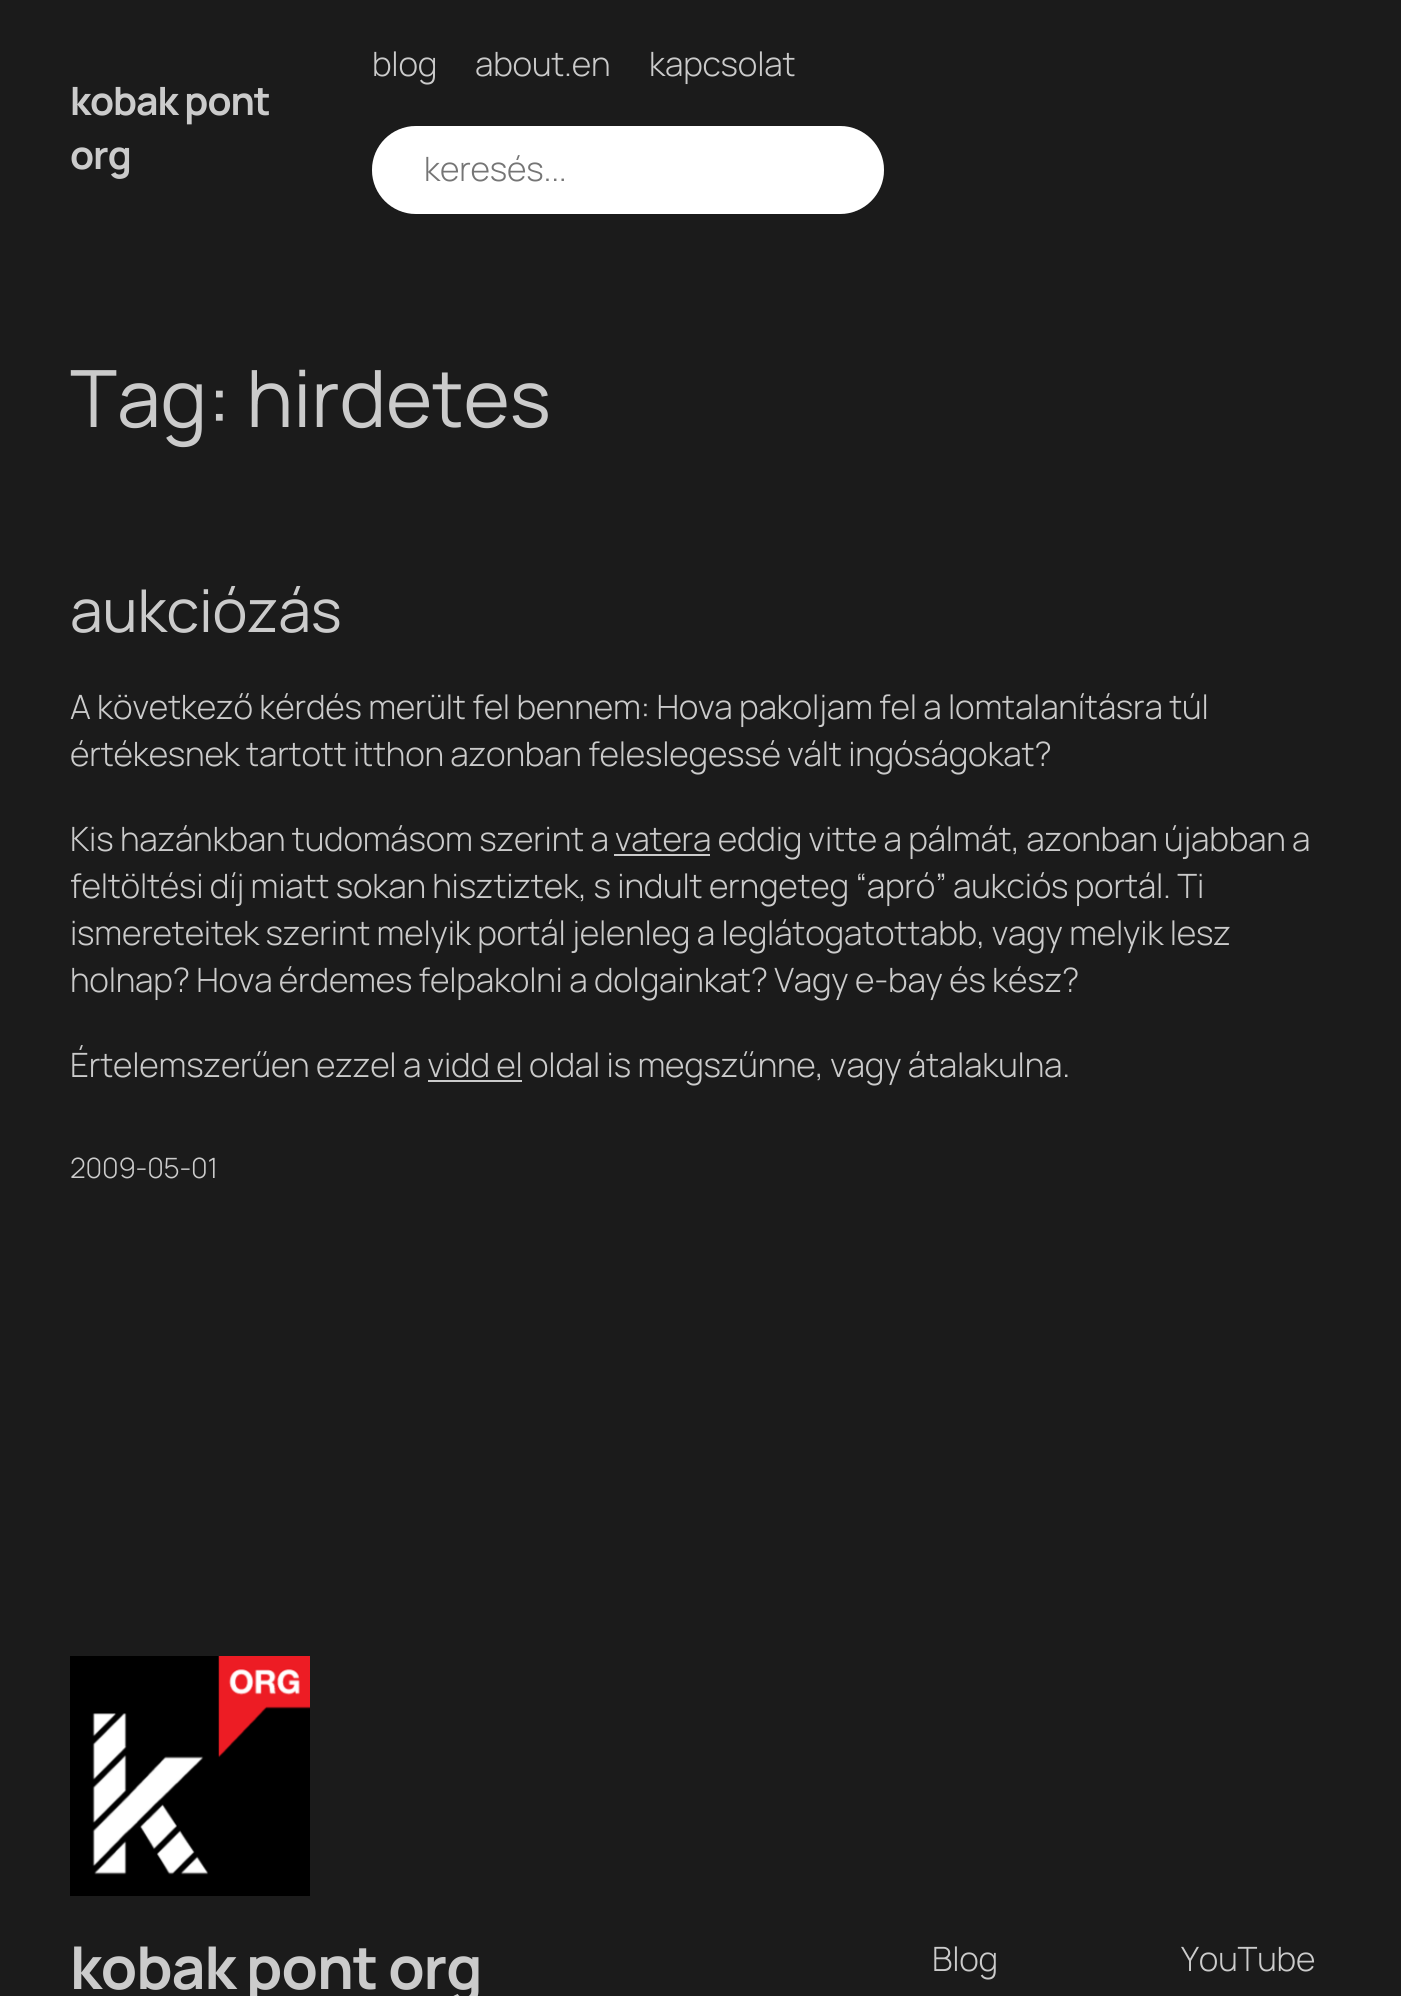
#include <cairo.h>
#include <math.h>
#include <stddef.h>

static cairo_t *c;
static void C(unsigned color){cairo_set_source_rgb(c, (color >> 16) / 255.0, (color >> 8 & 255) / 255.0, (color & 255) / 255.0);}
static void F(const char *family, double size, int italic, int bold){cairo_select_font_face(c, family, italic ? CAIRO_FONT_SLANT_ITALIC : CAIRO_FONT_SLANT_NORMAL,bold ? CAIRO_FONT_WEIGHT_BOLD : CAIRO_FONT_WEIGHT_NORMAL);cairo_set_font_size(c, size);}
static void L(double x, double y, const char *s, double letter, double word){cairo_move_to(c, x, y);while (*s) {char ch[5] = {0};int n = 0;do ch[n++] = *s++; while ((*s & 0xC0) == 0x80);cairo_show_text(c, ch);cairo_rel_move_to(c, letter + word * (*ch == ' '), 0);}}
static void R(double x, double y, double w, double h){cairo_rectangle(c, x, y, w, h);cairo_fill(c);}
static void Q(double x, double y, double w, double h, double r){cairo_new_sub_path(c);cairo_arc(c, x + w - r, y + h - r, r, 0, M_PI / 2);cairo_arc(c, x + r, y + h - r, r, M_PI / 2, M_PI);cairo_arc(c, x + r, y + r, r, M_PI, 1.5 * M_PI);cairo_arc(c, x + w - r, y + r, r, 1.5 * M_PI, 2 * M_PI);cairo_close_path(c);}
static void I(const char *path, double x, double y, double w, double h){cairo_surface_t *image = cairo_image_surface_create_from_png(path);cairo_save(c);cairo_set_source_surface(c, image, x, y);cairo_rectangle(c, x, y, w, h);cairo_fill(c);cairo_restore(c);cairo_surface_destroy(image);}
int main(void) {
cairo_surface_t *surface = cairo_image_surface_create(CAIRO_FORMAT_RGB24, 1401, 1996);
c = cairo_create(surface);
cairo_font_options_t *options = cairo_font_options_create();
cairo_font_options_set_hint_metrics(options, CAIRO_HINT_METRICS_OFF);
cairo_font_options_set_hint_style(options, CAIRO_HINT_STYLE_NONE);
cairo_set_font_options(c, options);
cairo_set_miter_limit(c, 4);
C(0x1b1b1b);
cairo_paint(c);
F("Manrope",39,0,1);
C(0xcbcbcb);
L(70,115,"kobak pont",-1,0);
L(70,169,"org",-1,0);
F("Manrope Light",33.5,0,0);
L(372,76,"blog",-.2,0);
L(475,76,"about.en",-.2,0);
L(649,76,"kapcsolat",-.2,0);
C(0xffffff);
Q(372,126,512,88,44);
cairo_fill(c);
Q(373,127,510,86,43);
cairo_set_source_rgba(c,1,1,1,0.2);
cairo_stroke(c);
C(0x757575);
L(424,181,"keresés...",-.2,0);
F("Manrope",79,0,0);
C(0xcbcbcb);
L(70,427,"Tag: hirdetes",-.2,0);
F("Manrope",59,0,0);
L(70,632,"aukciózás",-.2,0);
F("Manrope Light",33.5,0,0);
L(70,719,"A következő kérdés merült fel bennem: Hova pakoljam fel a lomtalanításra túl",-.2,0);
L(70,766,"értékesnek tartott itthon azonban feleslegessé vált ingóságokat?",-.2,0);
L(70,851,"Kis hazánkban tudomásom szerint a",-.2,0);
R(614,854,96,2);
L(615,851,"vatera eddig vitte a pálmát, azonban újabban a",-.2,0);
L(70,898,"feltöltési díj miatt sokan hisztiztek, s indult erngeteg “apró” aukciós portál. Ti",-.2,0);
L(70,945,"ismereteitek szerint melyik portál jelenleg a leglátogatottabb, vagy melyik lesz",-.2,0);
L(70,992,"holnap? Hova érdemes felpakolni a dolgainkat? Vagy e-bay és kész?",-.2,0);
L(70,1077,"Értelemszerűen ezzel a vidd el oldal is megszűnne, vagy átalakulna.",-.2,0);
R(428,1080,94,2);
F("Manrope Light",28,0,0);
L(70,1178,"2009-05-01",-.2,0);
I("1.png",70,1656,240,240);
F("Manrope",59,0,1);
L(70,1989,"kobak pont org",-1,0);
F("Manrope Light",33.5,0,0);
L(932,1971,"Blog",-.2,0);
L(1181,1971,"YouTube",-.2,0);
cairo_surface_write_to_png(surface, "o.png");
cairo_font_options_destroy(options);
cairo_destroy(c);
cairo_surface_destroy(surface);
return 0;
}
